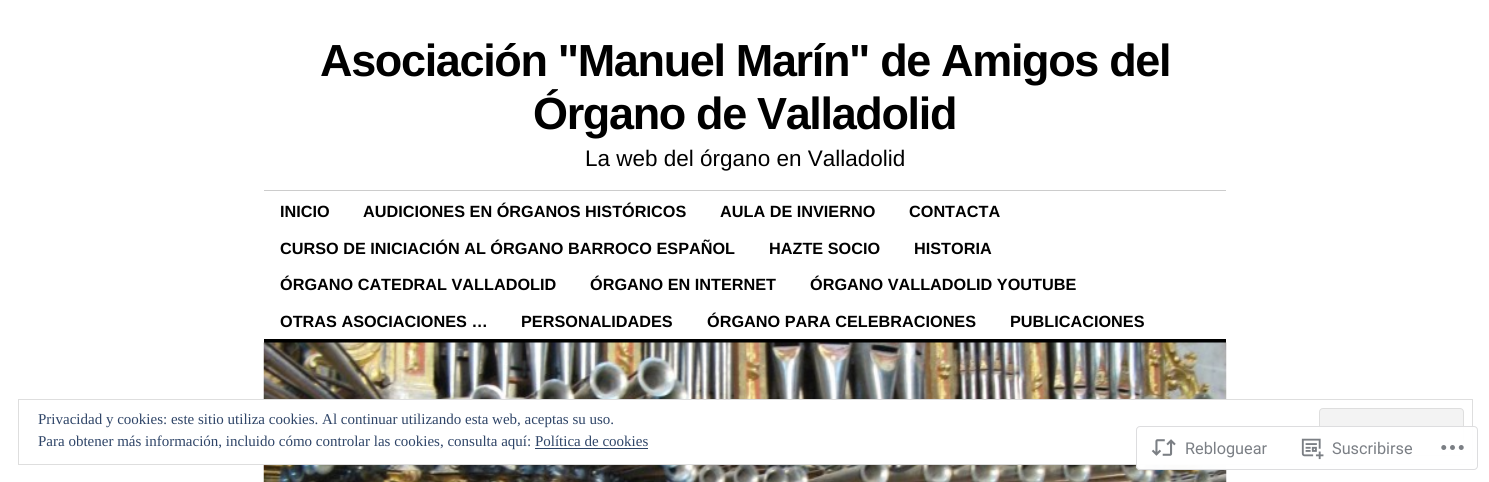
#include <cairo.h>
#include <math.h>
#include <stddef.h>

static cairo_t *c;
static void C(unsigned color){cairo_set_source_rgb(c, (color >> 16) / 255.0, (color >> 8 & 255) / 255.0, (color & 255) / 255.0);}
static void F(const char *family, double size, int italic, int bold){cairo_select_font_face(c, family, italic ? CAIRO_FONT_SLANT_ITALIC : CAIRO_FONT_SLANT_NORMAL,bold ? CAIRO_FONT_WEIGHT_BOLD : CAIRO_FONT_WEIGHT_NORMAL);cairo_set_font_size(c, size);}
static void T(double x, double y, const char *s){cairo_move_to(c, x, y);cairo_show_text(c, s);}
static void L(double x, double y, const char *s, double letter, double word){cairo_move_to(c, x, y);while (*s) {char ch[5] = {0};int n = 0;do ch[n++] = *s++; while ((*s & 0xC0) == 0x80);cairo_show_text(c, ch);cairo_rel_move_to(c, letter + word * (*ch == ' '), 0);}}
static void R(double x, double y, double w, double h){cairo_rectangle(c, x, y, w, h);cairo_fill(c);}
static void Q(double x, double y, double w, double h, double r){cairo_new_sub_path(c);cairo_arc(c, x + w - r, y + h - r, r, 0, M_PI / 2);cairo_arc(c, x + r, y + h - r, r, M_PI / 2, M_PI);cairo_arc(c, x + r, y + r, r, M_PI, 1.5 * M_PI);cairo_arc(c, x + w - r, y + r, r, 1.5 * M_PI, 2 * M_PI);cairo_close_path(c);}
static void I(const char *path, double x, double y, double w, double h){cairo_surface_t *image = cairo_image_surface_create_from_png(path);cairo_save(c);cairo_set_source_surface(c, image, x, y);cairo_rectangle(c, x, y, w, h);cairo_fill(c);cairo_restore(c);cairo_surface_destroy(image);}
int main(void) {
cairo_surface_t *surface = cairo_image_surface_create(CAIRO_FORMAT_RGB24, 1489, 482);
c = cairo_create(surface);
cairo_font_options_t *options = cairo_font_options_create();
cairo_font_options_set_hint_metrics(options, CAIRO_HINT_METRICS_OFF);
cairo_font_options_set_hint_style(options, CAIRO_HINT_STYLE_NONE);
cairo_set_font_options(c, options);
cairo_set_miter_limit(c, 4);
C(0xffffff);
cairo_paint(c);
F("Liberation Sans",45,0,1);
C(0x000000);
L(320,76,"Asociación \"Manuel Marín\" de Amigos del",-1.35,0);
L(533,129,"Órgano de Valladolid",-1.35,0);
F("Liberation Sans",22.5,0,0);
T(585,166,"La web del órgano en Valladolid");
C(0xcccccc);
R(264,190,962,1);
F("Liberation Sans",16.25,0,1);
C(0x000000);
T(280,217,"INICIO");
T(363,217,"AUDICIONES EN ÓRGANOS HISTÓRICOS");
T(720,217,"AULA DE INVIERNO");
T(909,217,"CONTACTA");
T(280,254,"CURSO DE INICIACIÓN AL ÓRGANO BARROCO ESPAÑOL");
T(769,254,"HAZTE SOCIO");
T(914,254,"HISTORIA");
T(280,290,"ÓRGANO CATEDRAL VALLADOLID");
T(590,290,"ÓRGANO EN INTERNET");
T(810,290,"ÓRGANO VALLADOLID YOUTUBE");
T(280,327,"OTRAS ASOCIACIONES …");
T(521,327,"PERSONALIDADES");
T(707,327,"ÓRGANO PARA CELEBRACIONES");
T(1010,327,"PUBLICACIONES");
R(264,339,962,4);
I("1.png",263,342,964,140);
C(0xffffff);
R(263,400,964,64);
cairo_rectangle(c,18.5,399.5,1454,65);
C(0xdedede);
cairo_set_line_width(c,1);
cairo_stroke(c);
F("Liberation Serif",15,0,0);
C(0x2e4467);
T(38,424,"Privacidad y cookies: este sitio utiliza cookies. Al continuar utilizando esta web, aceptas su uso.");
C(0xf3f3f3);
Q(1319.5,408.5,144,47,3.5);
cairo_fill_preserve(c);
C(0xdedede);
cairo_stroke(c);
C(0x2e4467);
T(38,446,"Para obtener más información, incluido cómo controlar las cookies, consulta aquí: Política de cookies");
R(535,448,113,1);
cairo_set_source_rgba(c,1,1,1,0.98);
Q(1136,426,342,44,4);
cairo_fill(c);
Q(1136.5,426.5,341,43,3.5);
cairo_set_source_rgba(c,0.863,0.863,0.871,0.98);
cairo_stroke(c);
I("2.png",1151,439,25,17);
F("Roboto",16.25,0,0);
C(0x7b7f85);
T(1185,454,"Rebloguear");
I("3.png",1301,438,23,22);
T(1332,454,"Suscribirse");
I("4.png",1441,445,23,5);
cairo_surface_write_to_png(surface, "o.png");
cairo_font_options_destroy(options);
cairo_destroy(c);
cairo_surface_destroy(surface);
return 0;
}
